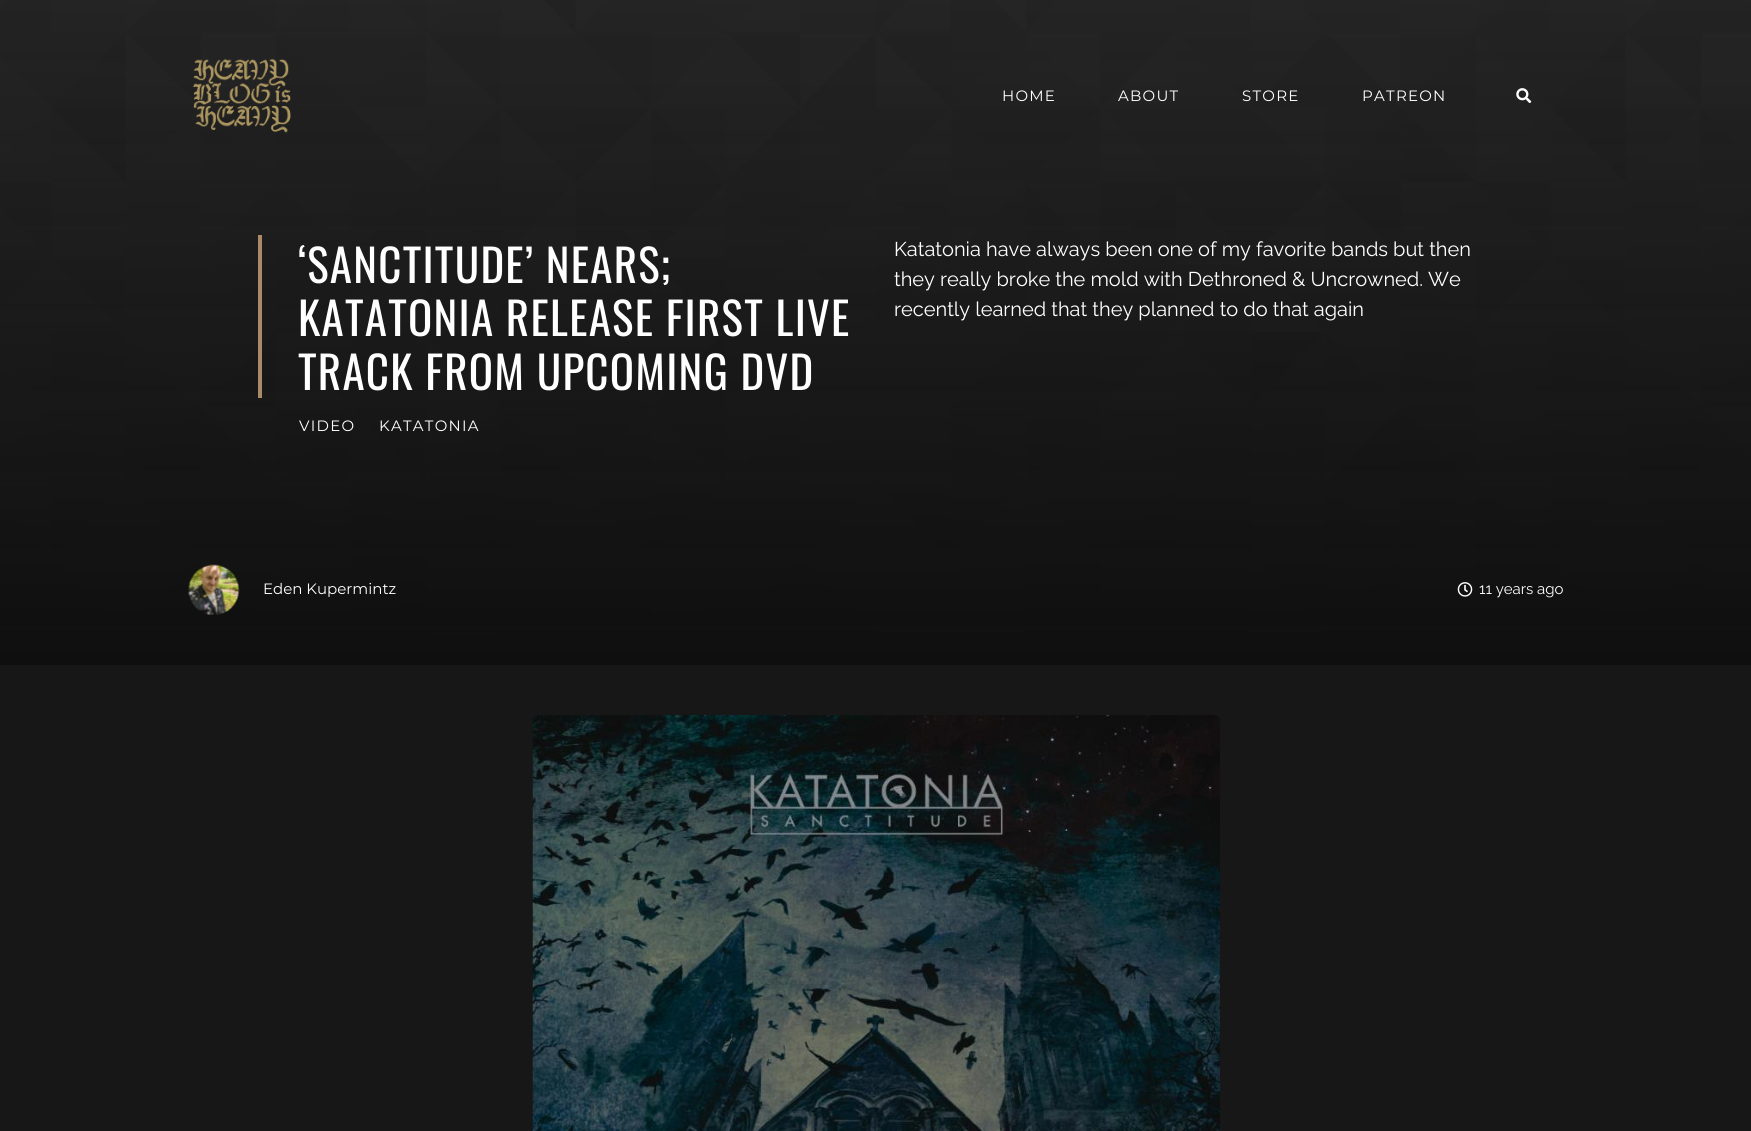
#include <cairo.h>
#include <math.h>
#include <stddef.h>

static cairo_t *c;
static void C(unsigned color){cairo_set_source_rgb(c, (color >> 16) / 255.0, (color >> 8 & 255) / 255.0, (color & 255) / 255.0);}
static void F(const char *family, double size, int italic, int bold){cairo_select_font_face(c, family, italic ? CAIRO_FONT_SLANT_ITALIC : CAIRO_FONT_SLANT_NORMAL,bold ? CAIRO_FONT_WEIGHT_BOLD : CAIRO_FONT_WEIGHT_NORMAL);cairo_set_font_size(c, size);}
static void T(double x, double y, const char *s){cairo_move_to(c, x, y);cairo_show_text(c, s);}
static void L(double x, double y, const char *s, double letter, double word){cairo_move_to(c, x, y);while (*s) {char ch[5] = {0};int n = 0;do ch[n++] = *s++; while ((*s & 0xC0) == 0x80);cairo_show_text(c, ch);cairo_rel_move_to(c, letter + word * (*ch == ' '), 0);}}
static void R(double x, double y, double w, double h){cairo_rectangle(c, x, y, w, h);cairo_fill(c);}
static void I(const char *path, double x, double y, double w, double h){cairo_surface_t *image = cairo_image_surface_create_from_png(path);cairo_save(c);cairo_set_source_surface(c, image, x, y);cairo_rectangle(c, x, y, w, h);cairo_fill(c);cairo_restore(c);cairo_surface_destroy(image);}
int main(void) {
cairo_surface_t *surface = cairo_image_surface_create(CAIRO_FORMAT_RGB24, 1751, 1131);
c = cairo_create(surface);
cairo_font_options_t *options = cairo_font_options_create();
cairo_font_options_set_hint_metrics(options, CAIRO_HINT_METRICS_OFF);
cairo_font_options_set_hint_style(options, CAIRO_HINT_STYLE_NONE);
cairo_set_font_options(c, options);
cairo_set_miter_limit(c, 4);
C(0x171717);
cairo_paint(c);
I("3.png",0,0,1751,665);
I("1.png",193,58,98,75);
F("Montserrat",15,0,0);
C(0xffffff);
L(1002,101,"HOME",1.25,0);
L(1118,101,"ABOUT",1.25,0);
L(1242,101,"STORE",1.25,0);
L(1362,101,"PATREON",1.25,0);
I("2.png",1516,88,16,16);
C(0xa98b69);
R(258,235,4,163);
F("Oswald",45,0,0);
C(0xffffff);
L(298,283,"‘SANCTITUDE’ NEARS;",1.25,0);
L(298,336,"KATATONIA RELEASE FIRST LIVE",1.25,0);
L(298,390,"TRACK FROM UPCOMING DVD",1.25,0);
F("Montserrat",15,0,0);
L(299,431,"VIDEO",1.25,0);
L(379,431,"KATATONIA",1.25,0);
F("Raleway",20,0,0);
T(894,256,"Katatonia have always been one of my favorite bands but then");
T(894,286,"they really broke the mold with Dethroned & Uncrowned. We");
T(894,316,"recently learned that they planned to do that again");
I("4.png",188,564,52,51);
F("Montserrat",15,0,0);
T(263,594,"Eden Kupermintz");
I("5.png",1457,582,16,15);
F("Raleway",15,0,0);
T(1479,594,"11 years ago");
I("6.png",532,715,688,416);
cairo_surface_write_to_png(surface, "o.png");
cairo_font_options_destroy(options);
cairo_destroy(c);
cairo_surface_destroy(surface);
return 0;
}
